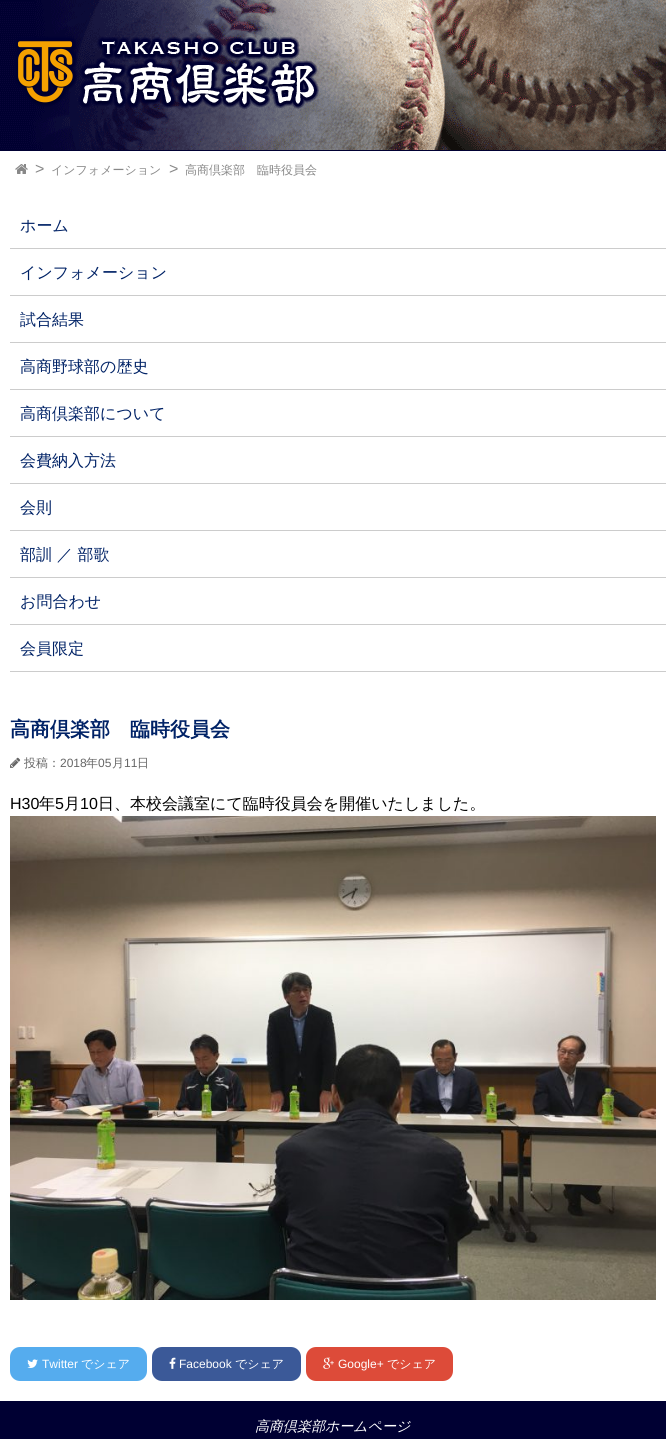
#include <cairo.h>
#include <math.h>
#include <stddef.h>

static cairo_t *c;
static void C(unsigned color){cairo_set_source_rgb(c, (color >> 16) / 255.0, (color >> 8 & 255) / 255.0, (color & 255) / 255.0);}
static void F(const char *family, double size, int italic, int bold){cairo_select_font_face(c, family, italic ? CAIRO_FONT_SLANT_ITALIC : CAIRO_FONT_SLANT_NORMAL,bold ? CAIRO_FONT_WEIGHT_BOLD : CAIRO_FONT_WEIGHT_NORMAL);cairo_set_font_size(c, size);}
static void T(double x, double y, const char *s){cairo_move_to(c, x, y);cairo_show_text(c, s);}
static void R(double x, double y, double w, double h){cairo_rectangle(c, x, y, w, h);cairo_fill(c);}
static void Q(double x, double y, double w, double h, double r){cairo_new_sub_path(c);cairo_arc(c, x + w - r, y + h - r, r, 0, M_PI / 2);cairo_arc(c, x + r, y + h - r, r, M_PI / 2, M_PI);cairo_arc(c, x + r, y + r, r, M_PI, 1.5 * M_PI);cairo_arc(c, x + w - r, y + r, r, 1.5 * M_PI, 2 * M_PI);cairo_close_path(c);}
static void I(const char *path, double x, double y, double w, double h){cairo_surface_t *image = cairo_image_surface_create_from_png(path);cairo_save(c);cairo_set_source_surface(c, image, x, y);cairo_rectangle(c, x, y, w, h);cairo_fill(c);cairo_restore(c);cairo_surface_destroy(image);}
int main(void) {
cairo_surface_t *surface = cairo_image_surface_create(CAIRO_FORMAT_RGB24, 666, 1439);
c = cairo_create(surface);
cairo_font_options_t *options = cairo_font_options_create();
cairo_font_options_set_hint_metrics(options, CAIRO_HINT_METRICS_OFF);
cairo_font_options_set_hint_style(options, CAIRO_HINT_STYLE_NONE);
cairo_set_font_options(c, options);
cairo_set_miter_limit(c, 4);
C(0xffffff);
cairo_paint(c);
C(0x000033);
R(0,150,666,1);
I("1.png",0,0,666,150);
I("2.png",14,36,305,74);
I("3.png",15,164,13,10);
F("Liberation Sans",16,0,0);
C(0x888888);
T(35,174,">");
F("WenQuanYi Zen Hei Medium",12,0,0);
T(51,174,"インフォメーション");
F("Liberation Sans",16,0,0);
T(169,174,">");
F("WenQuanYi Zen Hei Medium",12,0,0);
T(185,174,"高商倶楽部　臨時役員会");
C(0xcccccc);
R(10,248,656,1);
F("WenQuanYi Zen Hei Medium",16,0,0);
C(0x002266);
T(20,231,"ホーム");
C(0xcccccc);
R(10,295,656,1);
C(0x002266);
T(20,278,"インフォメーション");
C(0xcccccc);
R(10,342,656,1);
C(0x002266);
T(20,325,"試合結果");
C(0xcccccc);
R(10,389,656,1);
C(0x002266);
T(20,372,"高商野球部の歴史");
C(0xcccccc);
R(10,436,656,1);
C(0x002266);
T(20,419,"高商倶楽部について");
C(0xcccccc);
R(10,483,656,1);
C(0x002266);
T(20,466,"会費納入方法");
C(0xcccccc);
R(10,530,656,1);
C(0x002266);
T(20,513,"会則");
C(0xcccccc);
R(10,577,656,1);
C(0x002266);
T(20,560,"部訓 ／ 部歌");
C(0xcccccc);
R(10,624,656,1);
C(0x002266);
T(20,607,"お問合わせ");
C(0xcccccc);
R(10,671,656,1);
C(0x002266);
T(20,654,"会員限定");
F("WenQuanYi Zen Hei",20,0,1);
T(10,736,"高商倶楽部　臨時役員会");
I("4.png",10,757,11,11);
F("WenQuanYi Zen Hei Medium",12,0,0);
C(0x666666);
T(24,767,"投稿：");
F("Liberation Sans",12,0,0);
T(60,767,"2018");
F("WenQuanYi Zen Hei Medium",12,0,0);
T(86,767,"年");
F("Liberation Sans",12,0,0);
T(98,767,"05");
F("WenQuanYi Zen Hei Medium",12,0,0);
T(112,767,"月");
F("Liberation Sans",12,0,0);
T(124,767,"11");
F("WenQuanYi Zen Hei Medium",12,0,0);
T(137,767,"日");
F("Liberation Sans",16,0,0);
C(0x000000);
T(10,809,"H30");
F("WenQuanYi Zen Hei Medium",16,0,0);
T(39,809,"年");
F("Liberation Sans",16,0,0);
T(55,809,"5");
F("WenQuanYi Zen Hei Medium",16,0,0);
T(64,809,"月");
F("Liberation Sans",16,0,0);
T(80,809,"10");
F("WenQuanYi Zen Hei Medium",16,0,0);
T(98,809,"日、本校会議室にて臨時役員会を開催いたしました。");
I("5.png",10,816,646,484);
C(0x55acee);
Q(10,1347,137,34,10);
cairo_fill(c);
I("6.png",27,1359,11,9);
F("Liberation Sans",12,0,0);
C(0xffffff);
T(42,1368,"Twitter");
F("WenQuanYi Zen Hei Medium",12,0,0);
T(81,1368,"でシェア");
C(0x3b5998);
Q(152,1347,149,34,10);
cairo_fill(c);
I("7.png",169,1357,7,12);
F("Liberation Sans",12,0,0);
C(0xffffff);
T(179,1368,"Facebook");
F("WenQuanYi Zen Hei Medium",12,0,0);
T(235,1368,"でシェア");
C(0xdd4b39);
Q(306,1347,147,34,10);
cairo_fill(c);
I("8.png",323,1357,11,12);
F("Liberation Sans",12,0,0);
C(0xffffff);
T(338,1368,"Google+");
F("WenQuanYi Zen Hei Medium",12,0,0);
T(387,1368,"でシェア");
C(0x000033);
R(0,1401,666,38);
F("WenQuanYi Zen Hei Medium",14,1,0);
C(0xffffff);
T(255,1431,"高商倶楽部ホームページ");
cairo_surface_write_to_png(surface, "o.png");
cairo_font_options_destroy(options);
cairo_destroy(c);
cairo_surface_destroy(surface);
return 0;
}
